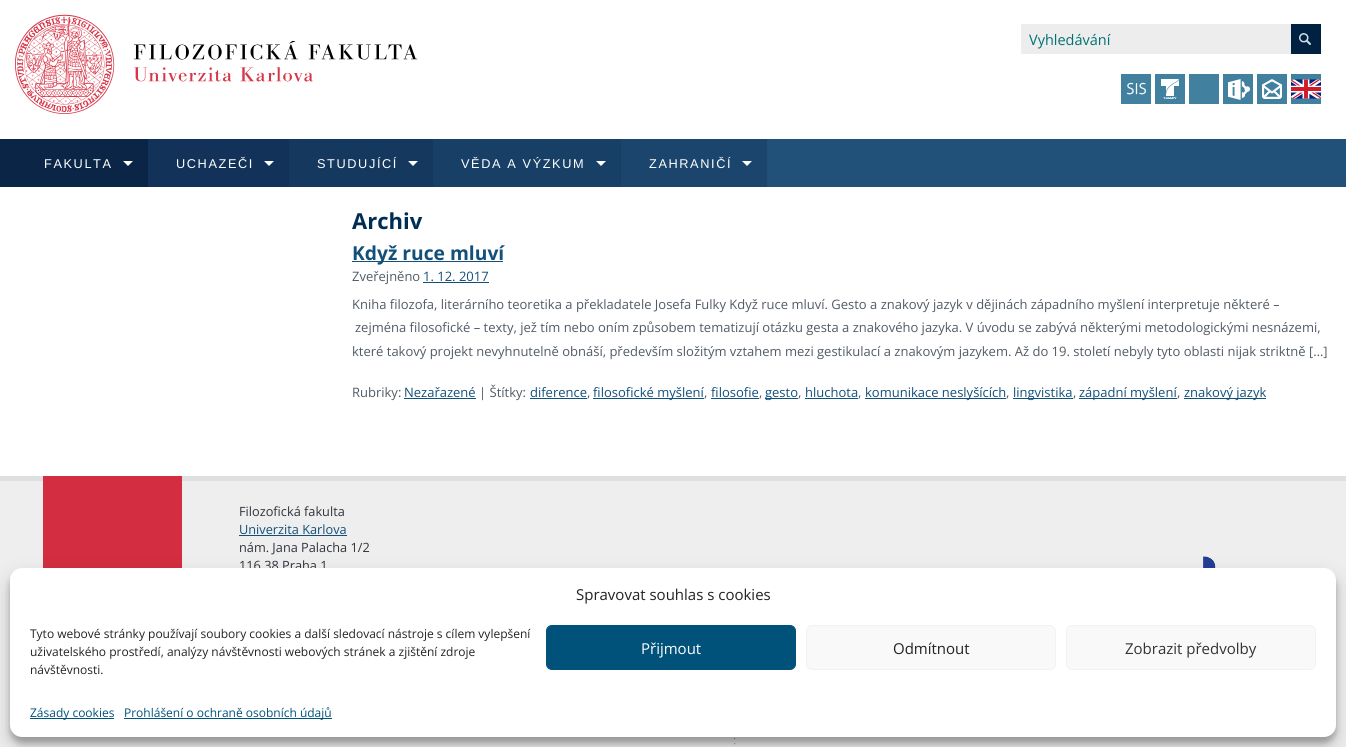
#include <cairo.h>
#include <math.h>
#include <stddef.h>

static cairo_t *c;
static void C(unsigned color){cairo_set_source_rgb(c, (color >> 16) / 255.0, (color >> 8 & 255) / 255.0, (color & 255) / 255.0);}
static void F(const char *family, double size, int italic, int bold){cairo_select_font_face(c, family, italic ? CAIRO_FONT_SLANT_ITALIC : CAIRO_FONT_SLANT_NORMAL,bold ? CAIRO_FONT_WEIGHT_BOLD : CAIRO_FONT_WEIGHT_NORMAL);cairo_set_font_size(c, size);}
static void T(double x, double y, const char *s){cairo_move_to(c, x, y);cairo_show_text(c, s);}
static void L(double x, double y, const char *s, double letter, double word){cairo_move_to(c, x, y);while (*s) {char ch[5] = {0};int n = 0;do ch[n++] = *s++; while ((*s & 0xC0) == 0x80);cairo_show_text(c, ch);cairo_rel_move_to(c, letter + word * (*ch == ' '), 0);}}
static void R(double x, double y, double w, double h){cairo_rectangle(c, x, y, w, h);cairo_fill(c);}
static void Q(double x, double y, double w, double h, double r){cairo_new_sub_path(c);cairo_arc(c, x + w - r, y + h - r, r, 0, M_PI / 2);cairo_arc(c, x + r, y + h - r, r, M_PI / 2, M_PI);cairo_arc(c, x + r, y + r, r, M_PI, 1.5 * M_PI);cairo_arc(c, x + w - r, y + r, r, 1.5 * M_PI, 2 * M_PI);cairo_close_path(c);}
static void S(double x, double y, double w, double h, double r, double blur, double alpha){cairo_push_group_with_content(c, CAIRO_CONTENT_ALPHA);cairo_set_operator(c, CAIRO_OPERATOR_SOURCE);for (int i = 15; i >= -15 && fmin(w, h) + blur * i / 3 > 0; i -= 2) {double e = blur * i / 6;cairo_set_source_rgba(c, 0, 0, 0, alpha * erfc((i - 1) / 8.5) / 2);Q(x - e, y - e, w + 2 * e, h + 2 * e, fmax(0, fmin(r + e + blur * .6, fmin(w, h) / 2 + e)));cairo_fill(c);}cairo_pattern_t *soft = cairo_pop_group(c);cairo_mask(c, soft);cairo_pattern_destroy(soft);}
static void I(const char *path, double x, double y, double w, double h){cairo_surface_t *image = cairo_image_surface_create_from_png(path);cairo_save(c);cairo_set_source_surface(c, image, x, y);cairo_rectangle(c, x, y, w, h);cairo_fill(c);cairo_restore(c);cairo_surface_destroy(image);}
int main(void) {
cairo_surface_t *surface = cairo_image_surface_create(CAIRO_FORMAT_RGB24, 1346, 747);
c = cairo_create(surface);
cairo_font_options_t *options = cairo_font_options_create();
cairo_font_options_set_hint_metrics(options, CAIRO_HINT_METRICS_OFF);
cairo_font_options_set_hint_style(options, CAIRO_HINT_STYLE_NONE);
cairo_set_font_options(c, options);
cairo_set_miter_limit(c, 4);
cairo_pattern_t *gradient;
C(0xffffff);
cairo_paint(c);
I("1.png",15,14,403,100);
C(0xededed);
R(1021,24,270,30);
F("Open Sans",14.5,0,0);
C(0x007171);
T(1029,45,"Vyhledávání");
C(0x002141);
R(1291,24,30,27);
I("2.png",1299,33,12,12);
C(0x00213f);
R(1291,51,30,3);
C(0x41819f);
R(1121,74,30,30);
I("3.png",1127,82,19,13);
R(1155,74,30,30);
I("4.png",1161,79,18,20);
R(1189,74,30,30);
R(1223,74,30,30);
I("5.png",1228,79,22,21);
R(1257,74,30,30);
I("6.png",1262,79,20,20);
R(1291,74,30,30);
I("7.png",1291,79,30,20);
gradient = cairo_pattern_create_linear(0,163,1346,163);
cairo_pattern_add_color_stop_rgba(gradient,.25,0.043,0.145,0.278,1);
cairo_pattern_add_color_stop_rgba(gradient,.25,0.129,0.318,0.471,1);
cairo_set_source(c,gradient);
cairo_pattern_destroy(gradient);
R(0,139,1346,48);
F("Liberation Sans",12.75,0,0);
C(0xffffff);
L(44,168,"FAKULTA",1.6,0);
cairo_new_path(c);
cairo_move_to(c,123,161);
cairo_line_to(c,133,161);
cairo_line_to(c,128,166);
cairo_close_path(c);
cairo_fill(c);
C(0x123259);
R(148,139,141,48);
C(0xffffff);
L(176,168,"UCHAZEČI",1.6,0);
cairo_new_path(c);
cairo_move_to(c,264,161);
cairo_line_to(c,274,161);
cairo_line_to(c,269,166);
cairo_close_path(c);
cairo_fill(c);
C(0x15385f);
R(289,139,144,48);
C(0xffffff);
L(317,168,"STUDUJÍCÍ",1.6,0);
cairo_new_path(c);
cairo_move_to(c,408,161);
cairo_line_to(c,418,161);
cairo_line_to(c,413,166);
cairo_close_path(c);
cairo_fill(c);
C(0x183f66);
R(433,139,188,48);
C(0xffffff);
L(461,168,"VĚDA A VÝZKUM",1.6,0);
cairo_new_path(c);
cairo_move_to(c,596,161);
cairo_line_to(c,606,161);
cairo_line_to(c,601,166);
cairo_close_path(c);
cairo_fill(c);
C(0x1b456c);
R(621,139,146,48);
C(0xffffff);
L(649,168,"ZAHRANIČÍ",1.6,0);
cairo_new_path(c);
cairo_move_to(c,742,161);
cairo_line_to(c,752,161);
cairo_line_to(c,747,166);
cairo_close_path(c);
cairo_fill(c);
F("Open Sans",22,0,1);
C(0x002d56);
T(352,229,"Archiv");
C(0x135079);
R(352,261,151,1);
F("Open Sans",19.25,0,1);
T(352,260,"Když ruce mluví");
F("Open Sans",13,0,0);
C(0x525b65);
T(352,281,"Zveřejněno");
C(0x135079);
T(423,281,"1. 12. 2017");
R(423,282,66,1);
C(0x525b65);
T(352,309,"Kniha filozofa, literárního teoretika a překladatele Josefa Fulky Když ruce mluví. Gesto a znakový jazyk v dějinách západního myšlení interpretuje některé –");
T(355,332,"zejména filosofické – texty, jež tím nebo oním způsobem tematizují otázku gesta a znakového jazyka. V úvodu se zabývá některými metodologickými nesnázemi,");
T(352,356,"které takový projekt nevyhnutelně obnáší, především složitým vztahem mezi gestikulací a znakovým jazykem. Až do 19. století nebyly tyto oblasti nijak striktně […]");
T(352,397,"Rubriky:");
C(0x135079);
T(404,397,"Nezařazené");
R(404,398,72,1);
C(0x525b65);
T(479,397,"| Štítky:");
C(0x135079);
T(530,397,"diference");
C(0x525b65);
T(587,397,",");
C(0x135079);
R(530,398,57,1);
R(593,398,111,1);
T(593,397,"filosofické myšlení");
C(0x525b65);
T(704,397,",");
C(0x135079);
T(711,397,"filosofie");
C(0x525b65);
T(759,397,",");
C(0x135079);
R(711,398,48,1);
R(765,398,33,1);
T(765,397,"gesto");
C(0x525b65);
T(798,397,",");
C(0x135079);
T(805,397,"hluchota");
C(0x525b65);
T(858,397,",");
C(0x135079);
R(805,398,53,1);
R(865,398,141,1);
T(865,397,"komunikace neslyšících");
C(0x525b65);
T(1006,397,",");
C(0x135079);
R(1013,398,60,1);
T(1013,397,"lingvistika");
C(0x525b65);
T(1073,397,",");
C(0x135079);
R(1079,398,98,1);
T(1079,397,"západní myšlení");
C(0x525b65);
T(1177,397,",");
C(0x135079);
R(1184,398,82,1);
T(1184,397,"znakový jazyk");
C(0xeeeeee);
R(0,481,1346,266);
C(0xdddfe1);
R(0,476,1346,5);
I("8.png",43,476,139,92);
F("Open Sans",12.75,0,0);
C(0x2f343a);
T(239,516,"Filozofická fakulta");
C(0x135079);
T(239,534,"Univerzita Karlova");
R(239,535,108,1);
C(0x2f343a);
T(239,552,"nám. Jana Palacha 1/2");
T(239,570,"116 38 Praha 1");
I("9.png",1203,556,13,12);
I("10.png",734,738,2,7);
C(0x000000);
S(10,574,1326,169,12,3,.23);
S(10,578,1326,169,12,10,.19);
C(0xffffff);
Q(10,568,1326,169,12);
cairo_fill(c);
F("Open Sans",15,0,0);
C(0x222222);
T(576,600,"Spravovat souhlas s cookies");
F("Open Sans",12,0,0);
T(30,638,"Tyto webové stránky používají soubory cookies a další sledovací nástroje s cílem vylepšení");
T(30,656,"uživatelského prostředí, analýzy návštěvnosti webových stránek a zjištění zdroje");
T(30,674,"návštěvnosti.");
C(0x00527b);
Q(546.5,625.5,249,44,5.5);
cairo_fill_preserve(c);
cairo_set_line_width(c,1);
cairo_stroke(c);
F("Open Sans",15,0,0);
C(0xffffff);
T(641,654,"Přijmout");
C(0xf9f9f9);
Q(806.5,625.5,249,44,5.5);
cairo_fill_preserve(c);
C(0xf2f2f2);
cairo_stroke(c);
C(0x222222);
T(893,654,"Odmítnout");
C(0xf9f9f9);
Q(1066.5,625.5,249,44,5.5);
cairo_fill_preserve(c);
C(0xf2f2f2);
cairo_stroke(c);
C(0x333333);
T(1125,654,"Zobrazit předvolby");
C(0x00527b);
R(30,718,84,1);
F("Open Sans",12,0,0);
T(30,717,"Zásady cookies");
R(124,718,208,1);
T(124,717,"Prohlášení o ochraně osobních údajů");
cairo_surface_write_to_png(surface, "o.png");
cairo_font_options_destroy(options);
cairo_destroy(c);
cairo_surface_destroy(surface);
return 0;
}
